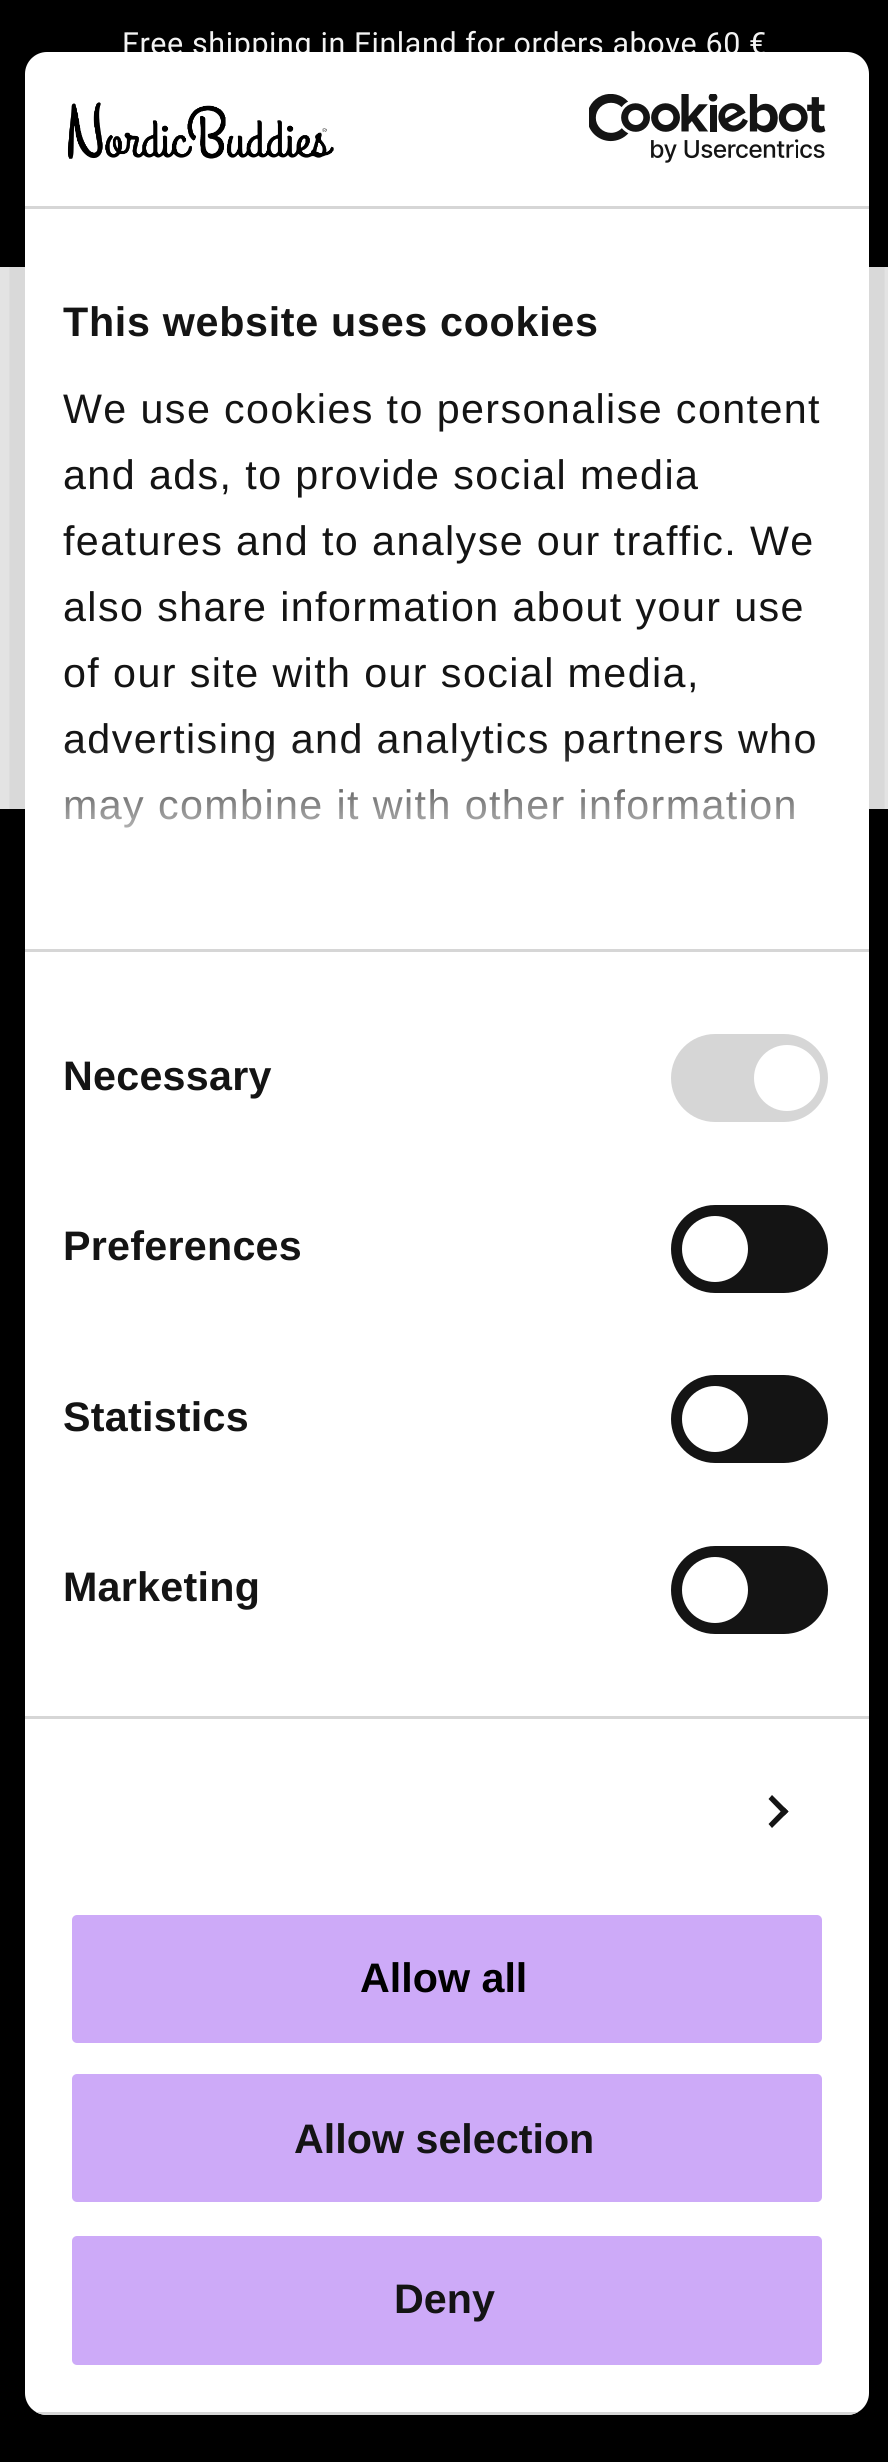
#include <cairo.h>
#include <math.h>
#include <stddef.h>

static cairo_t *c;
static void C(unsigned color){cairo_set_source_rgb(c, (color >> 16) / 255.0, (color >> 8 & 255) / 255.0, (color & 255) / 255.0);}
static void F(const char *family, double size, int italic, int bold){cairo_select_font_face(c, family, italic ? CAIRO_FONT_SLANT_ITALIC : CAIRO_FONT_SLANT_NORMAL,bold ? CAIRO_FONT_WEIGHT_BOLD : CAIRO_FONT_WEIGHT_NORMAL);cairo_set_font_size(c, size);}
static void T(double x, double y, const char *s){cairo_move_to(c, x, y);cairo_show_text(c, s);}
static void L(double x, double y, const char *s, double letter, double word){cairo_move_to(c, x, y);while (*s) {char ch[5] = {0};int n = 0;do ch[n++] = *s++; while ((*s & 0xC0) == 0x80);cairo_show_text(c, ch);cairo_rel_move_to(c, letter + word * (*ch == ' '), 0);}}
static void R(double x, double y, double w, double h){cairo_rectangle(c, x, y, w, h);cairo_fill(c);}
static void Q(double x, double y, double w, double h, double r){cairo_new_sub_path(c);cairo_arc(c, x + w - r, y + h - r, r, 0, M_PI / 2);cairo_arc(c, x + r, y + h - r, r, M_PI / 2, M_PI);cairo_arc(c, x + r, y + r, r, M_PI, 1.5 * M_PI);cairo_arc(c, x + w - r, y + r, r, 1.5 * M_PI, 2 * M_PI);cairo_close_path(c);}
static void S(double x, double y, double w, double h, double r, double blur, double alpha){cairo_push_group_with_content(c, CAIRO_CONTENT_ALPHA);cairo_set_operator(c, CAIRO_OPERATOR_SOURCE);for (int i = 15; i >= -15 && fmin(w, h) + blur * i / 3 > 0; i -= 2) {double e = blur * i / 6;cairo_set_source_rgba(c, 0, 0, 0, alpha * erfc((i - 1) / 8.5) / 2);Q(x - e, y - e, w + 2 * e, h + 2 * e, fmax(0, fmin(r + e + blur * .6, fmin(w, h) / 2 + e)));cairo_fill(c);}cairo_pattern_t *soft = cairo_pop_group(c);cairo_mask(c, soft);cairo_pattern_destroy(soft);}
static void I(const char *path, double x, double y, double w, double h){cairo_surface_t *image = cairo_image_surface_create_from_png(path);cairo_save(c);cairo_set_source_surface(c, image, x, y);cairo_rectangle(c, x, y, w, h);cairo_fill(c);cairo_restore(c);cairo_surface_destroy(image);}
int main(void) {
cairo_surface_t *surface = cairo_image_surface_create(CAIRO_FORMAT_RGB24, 888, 2462);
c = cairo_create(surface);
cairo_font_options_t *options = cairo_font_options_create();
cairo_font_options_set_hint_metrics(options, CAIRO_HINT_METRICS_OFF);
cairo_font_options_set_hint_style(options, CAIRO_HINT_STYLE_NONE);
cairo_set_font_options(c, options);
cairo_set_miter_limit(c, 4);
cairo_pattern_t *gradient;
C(0xffffff);
cairo_paint(c);
C(0x000000);
R(0,0,888,267);
F("Roboto",30.45,0,0);
C(0xffffff);
L(122,54,"Free shipping in Finland for orders above 60 €",.6,0);
C(0x000000);
R(0,809,888,1653);
cairo_save(c);
cairo_set_fill_rule(c,CAIRO_FILL_RULE_EVEN_ODD);
cairo_new_path(c);
cairo_move_to(c,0,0);
cairo_line_to(c,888,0);
cairo_line_to(c,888,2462);
cairo_line_to(c,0,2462);
cairo_close_path(c);
cairo_move_to(c,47,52);
cairo_line_to(c,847,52);
cairo_curve_to(c,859,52,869,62,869,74);
cairo_line_to(c,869,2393);
cairo_curve_to(c,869,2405,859,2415,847,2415);
cairo_line_to(c,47,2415);
cairo_curve_to(c,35,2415,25,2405,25,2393);
cairo_line_to(c,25,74);
cairo_curve_to(c,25,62,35,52,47,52);
cairo_close_path(c);
cairo_clip(c);
C(0x000000);
S(25,140,844,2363,22,93.5,.3);
cairo_restore(c);
C(0xffffff);
Q(25,52,844,2363,22);
cairo_fill(c);
C(0xd6d6d6);
R(25,206,844,3);
I("1.png",67,102,267,57);
I("2.png",589,94,237,69);
R(25,949,844,3);
F("Liberation Sans",41.25,0,1);
C(0x141414);
L(63,336,"This website uses cookies",.7,0);
F("Liberation Sans",41.25,0,0);
L(63,423,"We use cookies to personalise content",1.4,0);
L(63,489,"and ads, to provide social media",1.4,0);
L(63,555,"features and to analyse our traffic. We",1.4,0);
L(63,621,"also share information about your use",1.4,0);
L(63,687,"of our site with our social media,",1.4,0);
L(63,753,"advertising and analytics partners who",1.4,0);
L(63,819,"may combine it with other information",1.4,0);
gradient = cairo_pattern_create_linear(428,948,428,742);
cairo_pattern_add_color_stop_rgba(gradient,0,1,1,1,1);
cairo_pattern_add_color_stop_rgba(gradient,.5,1,1,1,.8);
cairo_pattern_add_color_stop_rgba(gradient,1,1,1,1,0);
cairo_set_source(c,gradient);
cairo_pattern_destroy(gradient);
R(65,745,749,83);
C(0xd6d6d6);
R(25,1716,844,3);
F("Liberation Sans",41.25,0,1);
C(0x141414);
L(63,1090,"Necessary",.25,0);
C(0xd6d6d6);
Q(671,1034,157,88,44);
cairo_fill(c);
C(0xffffff);
cairo_arc(c,787,1078,33,0,2 * M_PI);
cairo_fill(c);
C(0x141414);
L(63,1260,"Preferences",.25,0);
Q(671,1205,157,88,44);
cairo_fill(c);
C(0xffffff);
cairo_arc(c,715,1249,33,0,2 * M_PI);
cairo_fill(c);
C(0x141414);
L(63,1431,"Statistics",.25,0);
Q(671,1375,157,88,44);
cairo_fill(c);
C(0xffffff);
cairo_arc(c,715,1419,33,0,2 * M_PI);
cairo_fill(c);
C(0x141414);
L(63,1601,"Marketing",.25,0);
Q(671,1546,157,88,44);
cairo_fill(c);
C(0xffffff);
cairo_arc(c,715,1590,33,0,2 * M_PI);
cairo_fill(c);
C(0x141414);
cairo_new_path(c);
cairo_move_to(c,772,1795);
cairo_line_to(c,788.5,1811.5);
cairo_line_to(c,784.5,1815.5);
cairo_line_to(c,768.5,1799);
cairo_close_path(c);
cairo_fill(c);
cairo_new_path(c);
cairo_move_to(c,784.5,1807.5);
cairo_line_to(c,788.5,1811.5);
cairo_line_to(c,772,1828);
cairo_line_to(c,768.5,1824);
cairo_close_path(c);
cairo_fill(c);
cairo_save(c);
Q(25,52,844,2363,22);
cairo_clip(c);
C(0xd6d6d6);
R(36,2412,822,3);
cairo_restore(c);
C(0xcdaaf8);
Q(69,1912,756,134,8);
cairo_fill_preserve(c);
C(0xffffff);
cairo_set_line_width(c,6);
cairo_stroke(c);
C(0x000000);
T(360,1992,"Allow all");
C(0xcdaaf8);
Q(69,2071,756,134,8);
cairo_fill_preserve(c);
C(0xffffff);
cairo_stroke(c);
C(0x141414);
T(294,2153,"Allow selection");
C(0xcdaaf8);
Q(69,2233,756,135,8);
cairo_fill_preserve(c);
C(0xffffff);
cairo_stroke(c);
C(0x141414);
T(394,2313,"Deny");
cairo_surface_write_to_png(surface, "o.png");
cairo_font_options_destroy(options);
cairo_destroy(c);
cairo_surface_destroy(surface);
return 0;
}
